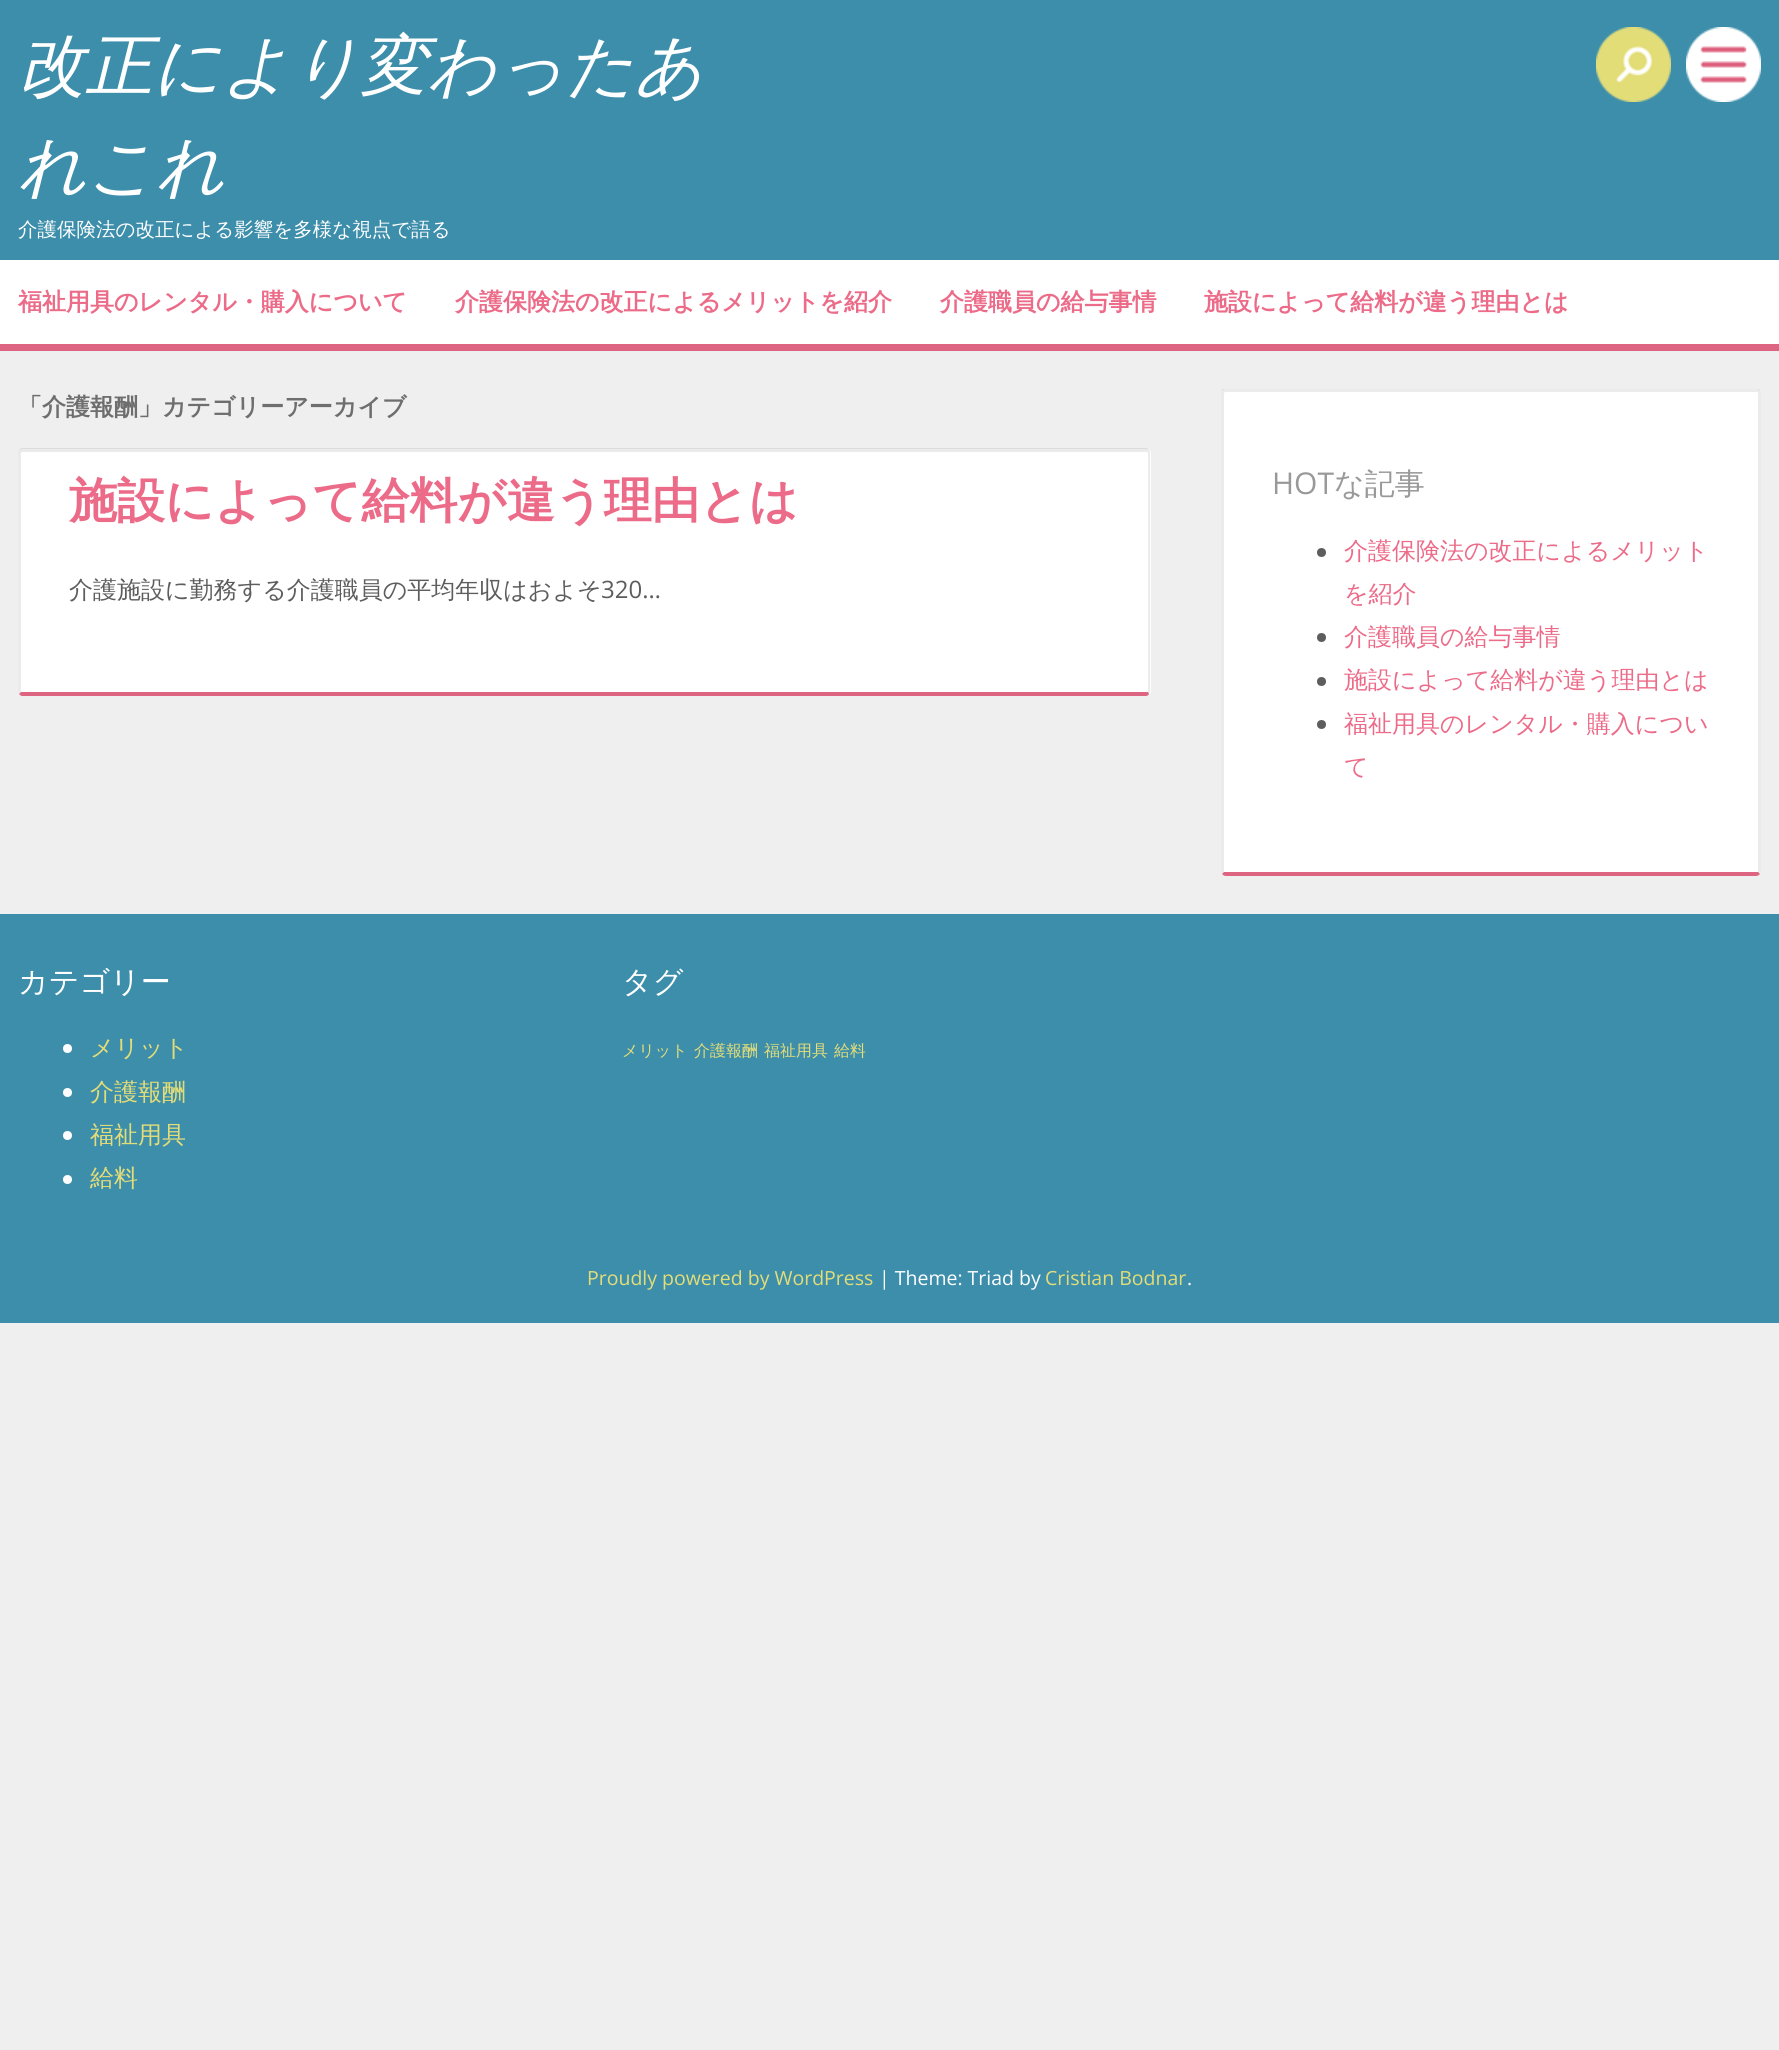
import math
import cairo


def round_path(ctx, x, y, w, h, r):
	ctx.new_sub_path()
	for i, (u, v) in enumerate([(x + w - r, y + h - r), (x + r, y + h - r), (x + r, y + r), (x + w - r, y + r)]):
		ctx.arc(u, v, r, i * math.pi / 2, (i + 1) * math.pi / 2)
	ctx.close_path()

def paste(ctx, path, x, y, w, h):
	ctx.save()
	ctx.set_source_surface(cairo.ImageSurface.create_from_png(path), x, y)
	ctx.rectangle(x, y, w, h)
	ctx.fill()
	ctx.restore()

def draw(ctx):
	ctx.set_source_rgb(0.937, 0.937, 0.937)
	ctx.paint()
	ctx.set_source_rgb(0.239, 0.557, 0.671)
	ctx.rectangle(0, 0, 1779, 260)
	ctx.fill()
	ctx.select_font_face('WenQuanYi Zen Hei Medium', cairo.FONT_SLANT_ITALIC)
	ctx.set_font_size(67.5)
	ctx.set_source_rgb(1, 1, 1)
	ctx.move_to(18, 89)
	ctx.show_text('改正により変わったあ')
	ctx.move_to(18, 190)
	ctx.show_text('れこれ')
	ctx.select_font_face('WenQuanYi Zen Hei Medium')
	ctx.set_font_size(19.5)
	ctx.move_to(18, 236)
	ctx.show_text('介護保険法の改正による影響を多様な視点で語る')
	paste(ctx, 'media/1.png', 1596, 27, 75, 75)
	paste(ctx, 'media/2.png', 1686, 27, 75, 75)
	ctx.rectangle(0, 260, 1779, 84)
	ctx.fill()
	ctx.set_source_rgb(0.871, 0.396, 0.506)
	ctx.rectangle(0, 344, 1779, 7)
	ctx.fill()
	ctx.select_font_face('WenQuanYi Zen Hei', cairo.FONT_SLANT_NORMAL, cairo.FONT_WEIGHT_BOLD)
	ctx.set_font_size(24)
	ctx.set_source_rgb(0.922, 0.42, 0.533)
	for x, y, s in [
		(18, 310, '福祉用具のレンタル・購入について'),
		(455, 310, '介護保険法の改正によるメリットを紹介'),
		(940, 310, '介護職員の給与事情'),
		(1204, 310, '施設によって給料が違う理由とは'),
	]:
		ctx.move_to(x, y)
		ctx.show_text(s)
	ctx.set_source_rgb(0.431, 0.431, 0.431)
	ctx.move_to(18, 415)
	ctx.show_text('「介護報酬」カテゴリーアーカイブ')
	ctx.set_source_rgb(1, 1, 1)
	round_path(ctx, 18, 449, 1133, 247, 5)
	ctx.fill()
	ctx.set_source_rgba(0.212, 0.212, 0.212, 0.1)
	ctx.new_path()
	ctx.move_to(22, 452)
	ctx.line_to(19, 450)
	ctx.line_to(21, 448)
	ctx.line_to(1147, 448)
	ctx.line_to(1149, 450)
	ctx.line_to(1147, 452)
	ctx.line_to(1146, 452)
	ctx.close_path()
	ctx.fill()
	ctx.new_path()
	ctx.move_to(1149, 450)
	ctx.line_to(1150, 453)
	ctx.line_to(1150, 692)
	ctx.line_to(1149, 694)
	ctx.line_to(1148, 692)
	ctx.line_to(1148, 453)
	ctx.line_to(1147, 452)
	ctx.close_path()
	ctx.fill()
	ctx.set_source_rgb(0.871, 0.396, 0.506)
	ctx.new_path()
	ctx.move_to(22, 696)
	ctx.line_to(1146, 696)
	ctx.curve_to(1147, 696, 1149, 695, 1149, 694)
	ctx.line_to(1148, 692)
	ctx.line_to(21, 692)
	ctx.line_to(19, 694)
	ctx.curve_to(20, 695, 21, 696, 22, 696)
	ctx.close_path()
	ctx.fill()
	ctx.set_source_rgba(0.212, 0.212, 0.212, 0.1)
	ctx.new_path()
	ctx.move_to(18, 453)
	ctx.line_to(18, 692)
	ctx.line_to(19, 694)
	ctx.line_to(21, 692)
	ctx.line_to(21, 453)
	ctx.line_to(22, 452)
	ctx.line_to(19, 450)
	ctx.close_path()
	ctx.fill()
	ctx.set_font_size(48)
	ctx.set_source_rgb(0.922, 0.42, 0.533)
	ctx.move_to(69, 517)
	ctx.show_text('施設によって給料が違う理由とは')
	ctx.select_font_face('WenQuanYi Zen Hei Medium')
	ctx.set_font_size(24)
	ctx.set_source_rgb(0.365, 0.365, 0.365)
	ctx.move_to(69, 598)
	ctx.show_text('介護施設に勤務する介護職員の平均年収はおよそ')
	ctx.select_font_face('Open Sans')
	ctx.move_to(601, 598)
	ctx.show_text('320…')
	ctx.set_source_rgb(1, 1, 1)
	round_path(ctx, 1221, 389, 540, 487, 5)
	ctx.fill()
	ctx.save()
	ctx.rectangle(0, 389, 1779, 487)
	ctx.clip()
	ctx.set_source_rgba(0.212, 0.212, 0.212, 0.1)
	ctx.new_path()
	ctx.move_to(1226, 392)
	ctx.line_to(1225, 392)
	ctx.line_to(1222, 390)
	ctx.curve_to(1242, 367, 1283, 388, 1313, 388)
	ctx.line_to(1758, 388)
	ctx.line_to(1760, 390)
	ctx.line_to(1757, 392)
	ctx.line_to(1756, 392)
	ctx.close_path()
	ctx.fill()
	ctx.restore()
	ctx.set_source_rgba(0.212, 0.212, 0.212, 0.1)
	ctx.new_path()
	ctx.move_to(1761, 872)
	ctx.line_to(1761, 393)
	ctx.line_to(1760, 390)
	ctx.line_to(1757, 392)
	ctx.line_to(1758, 393)
	ctx.line_to(1758, 872)
	ctx.line_to(1760, 874)
	ctx.close_path()
	ctx.fill()
	ctx.set_source_rgb(0.871, 0.396, 0.506)
	ctx.new_path()
	ctx.move_to(1226, 876)
	ctx.line_to(1756, 876)
	ctx.curve_to(1758, 876, 1759, 875, 1760, 874)
	ctx.line_to(1758, 872)
	ctx.line_to(1224, 872)
	ctx.line_to(1222, 874)
	ctx.curve_to(1223, 875, 1224, 876, 1226, 876)
	ctx.close_path()
	ctx.fill()
	ctx.set_source_rgba(0.212, 0.212, 0.212, 0.1)
	ctx.new_path()
	ctx.move_to(1221, 393)
	ctx.line_to(1221, 872)
	ctx.line_to(1222, 874)
	ctx.line_to(1224, 872)
	ctx.line_to(1224, 393)
	ctx.line_to(1225, 392)
	ctx.line_to(1222, 390)
	ctx.close_path()
	ctx.fill()
	ctx.set_font_size(30)
	ctx.set_source_rgb(0.6, 0.6, 0.6)
	ctx.move_to(1272, 494)
	ctx.show_text('HOT')
	ctx.select_font_face('WenQuanYi Zen Hei Medium')
	ctx.move_to(1334, 494)
	ctx.show_text('な記事')
	ctx.set_source_rgb(0.365, 0.365, 0.365)
	ctx.new_path()
	ctx.arc(1321.5, 552.5, 4.5, 0, 2 * math.pi)
	ctx.fill()
	ctx.set_font_size(24)
	ctx.set_source_rgb(0.922, 0.42, 0.533)
	ctx.move_to(1344, 559)
	ctx.show_text('介護保険法の改正によるメリット')
	ctx.move_to(1344, 602)
	ctx.show_text('を紹介')
	ctx.set_source_rgb(0.365, 0.365, 0.365)
	ctx.new_path()
	ctx.arc(1321.5, 637.5, 4.5, 0, 2 * math.pi)
	ctx.fill()
	ctx.set_source_rgb(0.922, 0.42, 0.533)
	ctx.move_to(1344, 645)
	ctx.show_text('介護職員の給与事情')
	ctx.set_source_rgb(0.365, 0.365, 0.365)
	ctx.new_path()
	ctx.arc(1321.5, 681.5, 4.5, 0, 2 * math.pi)
	ctx.fill()
	ctx.set_source_rgb(0.922, 0.42, 0.533)
	ctx.move_to(1344, 688)
	ctx.show_text('施設によって給料が違う理由とは')
	ctx.set_source_rgb(0.365, 0.365, 0.365)
	ctx.new_path()
	ctx.arc(1321.5, 724.5, 4.5, 0, 2 * math.pi)
	ctx.fill()
	ctx.set_source_rgb(0.922, 0.42, 0.533)
	ctx.move_to(1344, 732)
	ctx.show_text('福祉用具のレンタル・購入につい')
	ctx.move_to(1344, 775)
	ctx.show_text('て')
	ctx.set_source_rgb(0.239, 0.557, 0.671)
	ctx.rectangle(0, 914, 1779, 409)
	ctx.fill()
	ctx.set_font_size(30)
	ctx.set_source_rgb(1, 1, 1)
	ctx.move_to(18, 992)
	ctx.show_text('カテゴリー')
	ctx.new_path()
	ctx.arc(67.5, 1048.5, 4.5, 0, 2 * math.pi)
	ctx.fill()
	ctx.set_font_size(24)
	ctx.set_source_rgb(0.89, 0.867, 0.471)
	ctx.move_to(90, 1056)
	ctx.show_text('メリット')
	ctx.set_source_rgb(1, 1, 1)
	ctx.new_path()
	ctx.arc(67.5, 1092.5, 4.5, 0, 2 * math.pi)
	ctx.fill()
	ctx.set_source_rgb(0.89, 0.867, 0.471)
	ctx.move_to(90, 1100)
	ctx.show_text('介護報酬')
	ctx.set_source_rgb(1, 1, 1)
	ctx.new_path()
	ctx.arc(67.5, 1135.5, 4.5, 0, 2 * math.pi)
	ctx.fill()
	ctx.set_source_rgb(0.89, 0.867, 0.471)
	ctx.move_to(90, 1143)
	ctx.show_text('福祉用具')
	ctx.set_source_rgb(1, 1, 1)
	ctx.new_path()
	ctx.arc(67.5, 1179.5, 4.5, 0, 2 * math.pi)
	ctx.fill()
	ctx.set_source_rgb(0.89, 0.867, 0.471)
	ctx.move_to(90, 1186)
	ctx.show_text('給料')
	ctx.set_font_size(30)
	ctx.set_source_rgb(1, 1, 1)
	ctx.move_to(622, 992)
	ctx.show_text('タグ')
	ctx.set_font_size(16)
	ctx.set_source_rgb(0.89, 0.867, 0.471)
	for x, y, s in [
		(622, 1056, 'メリット'),
		(694, 1056, '介護報酬'),
		(764, 1056, '福祉用具'),
		(834, 1056, '給料'),
	]:
		ctx.move_to(x, y)
		ctx.show_text(s)
	ctx.select_font_face('Open Sans')
	ctx.set_font_size(19.5)
	ctx.move_to(587, 1285)
	ctx.show_text('Proudly powered by WordPress')
	ctx.set_source_rgb(1, 1, 1)
	ctx.move_to(879, 1285)
	ctx.show_text('| Theme: Triad by')
	ctx.set_source_rgb(0.89, 0.867, 0.471)
	ctx.move_to(1045, 1285)
	ctx.show_text('Cristian Bodnar')
	ctx.set_source_rgb(1, 1, 1)
	ctx.move_to(1187, 1285)
	ctx.show_text('.')


surface = cairo.ImageSurface(cairo.FORMAT_RGB24, 1779, 2050)
ctx = cairo.Context(surface)
options = cairo.FontOptions()
options.set_hint_metrics(cairo.HINT_METRICS_OFF)
options.set_hint_style(cairo.HINT_STYLE_NONE)
ctx.set_font_options(options)
ctx.set_miter_limit(4)
draw(ctx)
surface.write_to_png('image.png')
